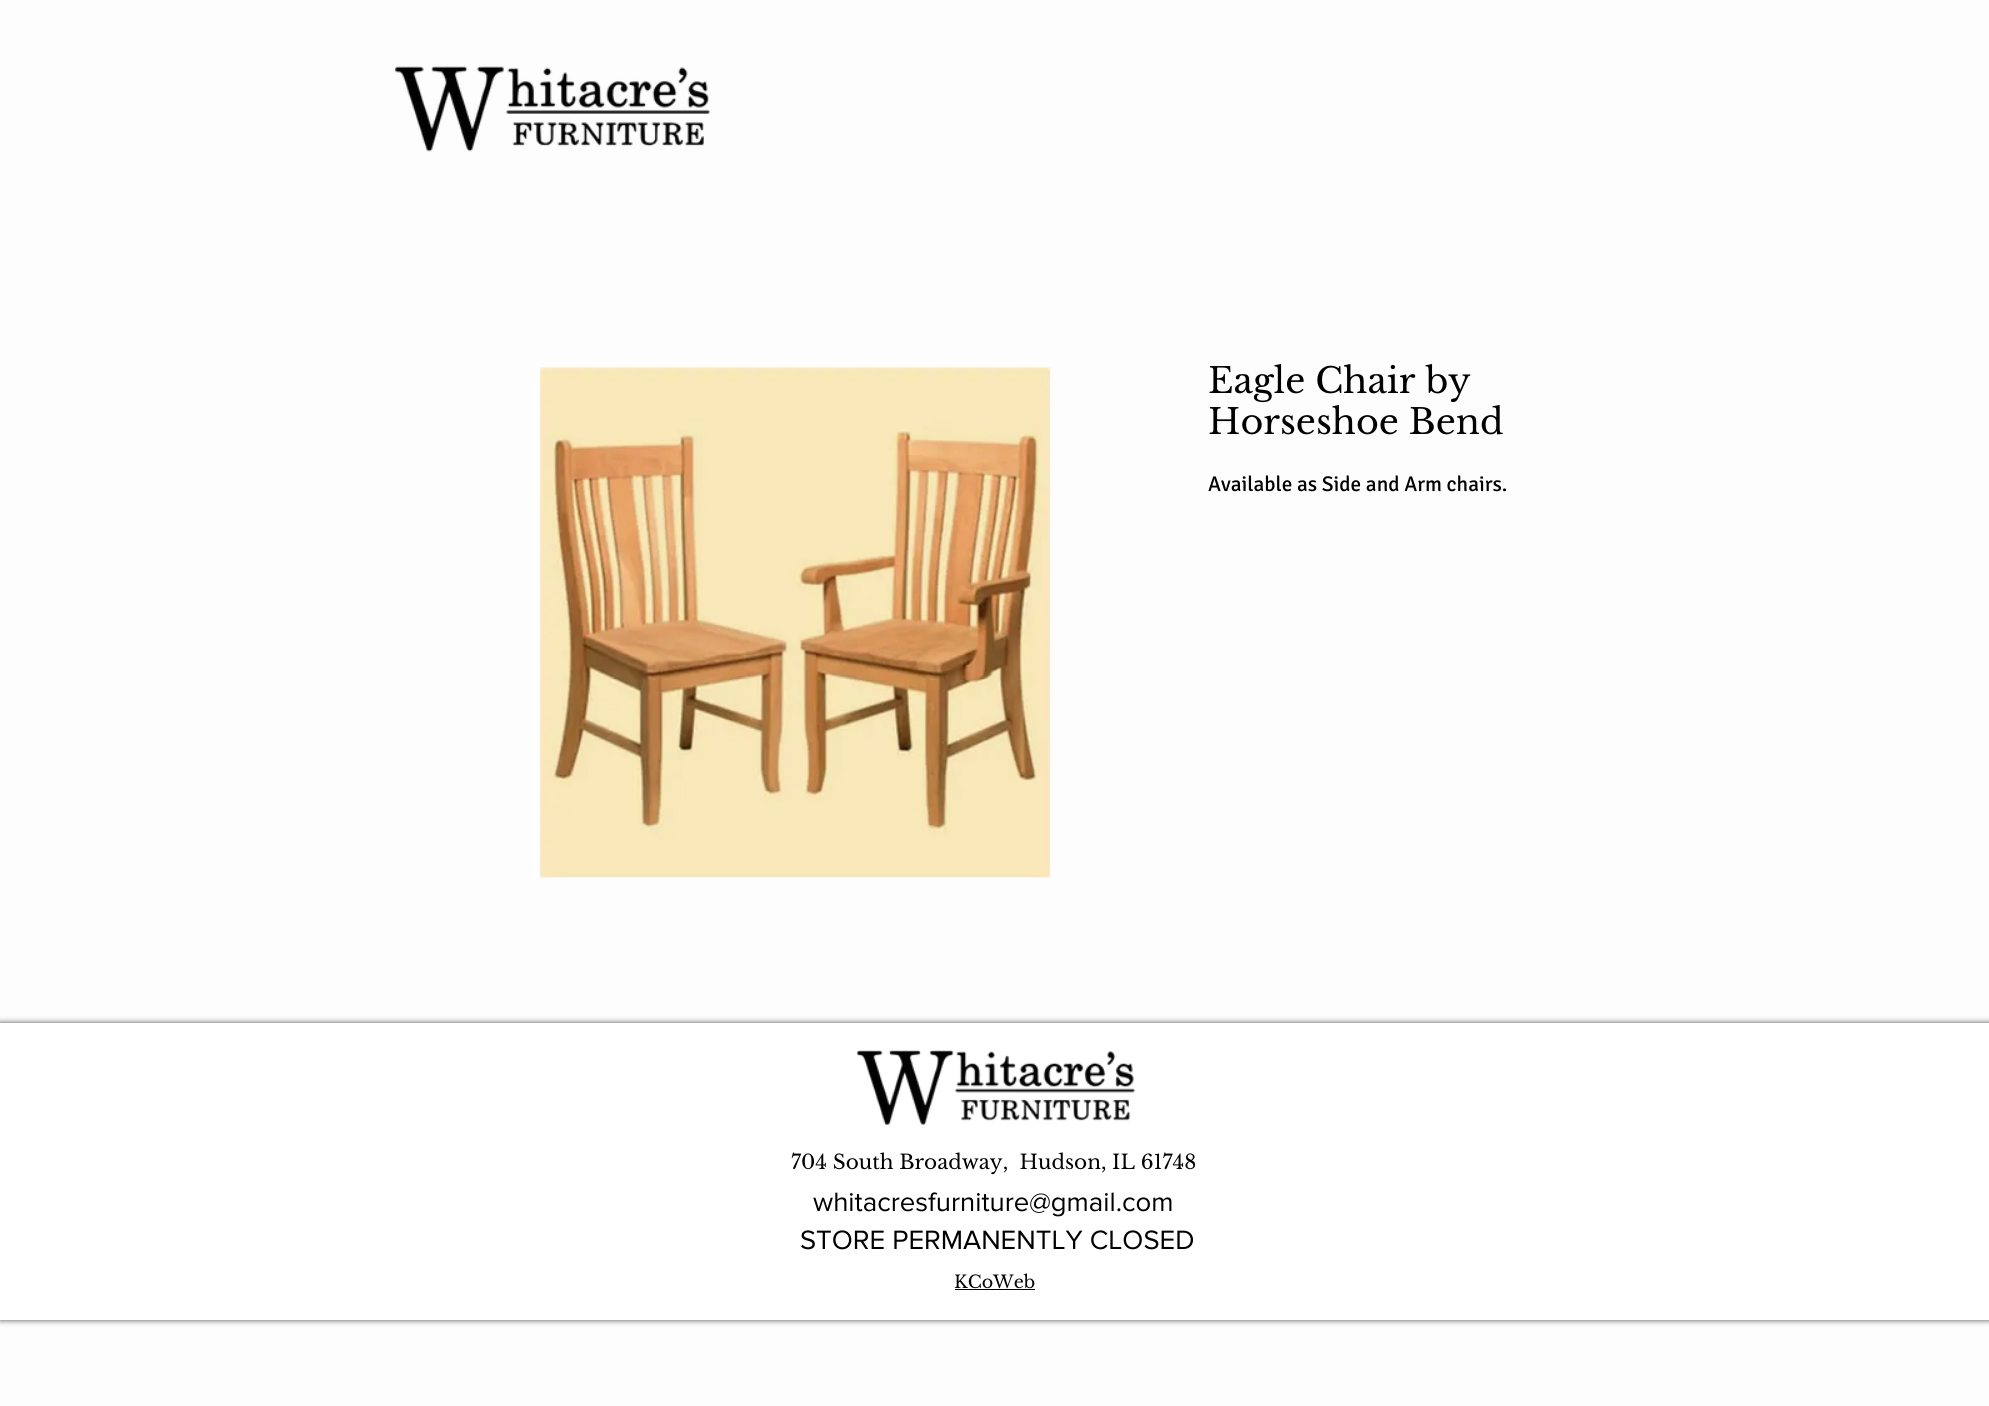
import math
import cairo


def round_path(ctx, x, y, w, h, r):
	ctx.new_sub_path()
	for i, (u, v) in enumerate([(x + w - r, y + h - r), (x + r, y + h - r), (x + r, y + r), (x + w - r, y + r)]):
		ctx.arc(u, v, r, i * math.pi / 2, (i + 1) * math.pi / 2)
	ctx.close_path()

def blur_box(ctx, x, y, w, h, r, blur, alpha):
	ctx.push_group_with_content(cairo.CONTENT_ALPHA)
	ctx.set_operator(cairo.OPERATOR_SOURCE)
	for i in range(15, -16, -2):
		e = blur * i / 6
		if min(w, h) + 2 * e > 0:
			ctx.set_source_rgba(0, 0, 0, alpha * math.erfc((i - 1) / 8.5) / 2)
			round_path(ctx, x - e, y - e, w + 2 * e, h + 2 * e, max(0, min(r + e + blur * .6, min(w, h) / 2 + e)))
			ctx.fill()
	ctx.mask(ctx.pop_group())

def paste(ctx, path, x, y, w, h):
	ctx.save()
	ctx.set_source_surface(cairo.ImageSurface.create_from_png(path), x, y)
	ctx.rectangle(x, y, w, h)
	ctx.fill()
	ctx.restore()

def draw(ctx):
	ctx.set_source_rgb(0.996, 0.992, 0.992)
	ctx.paint()
	paste(ctx, 'media/1.png', 395, 66, 315, 86)
	paste(ctx, 'media/2.png', 532, 360, 520, 519)
	ctx.select_font_face('Libre Baskerville')
	ctx.set_font_size(35)
	ctx.set_source_rgb(0, 0, 0)
	ctx.move_to(1208, 393)
	ctx.show_text('Eagle Chair by')
	ctx.move_to(1208, 434)
	ctx.show_text('Horseshoe Bend')
	ctx.select_font_face('Signika')
	ctx.set_font_size(21.25)
	ctx.move_to(1208, 491)
	ctx.show_text('Available as Side and Arm chairs.')
	ctx.set_source_rgb(0, 0, 0)
	blur_box(ctx, 0, 1023, 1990, 297, 0, 3, 0.7)
	ctx.set_source_rgb(1, 1, 1)
	ctx.rectangle(0, 1023, 1989, 297)
	ctx.fill()
	paste(ctx, 'media/3.png', 856, 1050, 280, 75)
	ctx.select_font_face('Libre Baskerville')
	ctx.set_font_size(20)
	ctx.set_source_rgb(0, 0, 0)
	ctx.move_to(791, 1169)
	ctx.show_text('704 South Broadway,  Hudson, IL 61748')
	ctx.select_font_face('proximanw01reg')
	ctx.set_font_size(27.5)
	ctx.move_to(813, 1211)
	ctx.show_text('whitacresfurniture@gmail.com')
	ctx.move_to(800, 1249)
	ctx.show_text('STORE PERMANENTLY CLOSED')
	ctx.select_font_face('Libre Baskerville')
	ctx.set_font_size(17.5)
	ctx.move_to(954, 1288)
	ctx.show_text('KCoWeb')
	ctx.rectangle(955, 1289, 80, 1)
	ctx.fill()


surface = cairo.ImageSurface(cairo.FORMAT_RGB24, 1989, 1406)
ctx = cairo.Context(surface)
options = cairo.FontOptions()
options.set_hint_metrics(cairo.HINT_METRICS_OFF)
options.set_hint_style(cairo.HINT_STYLE_NONE)
ctx.set_font_options(options)
ctx.set_miter_limit(4)
draw(ctx)
surface.write_to_png('image.png')
